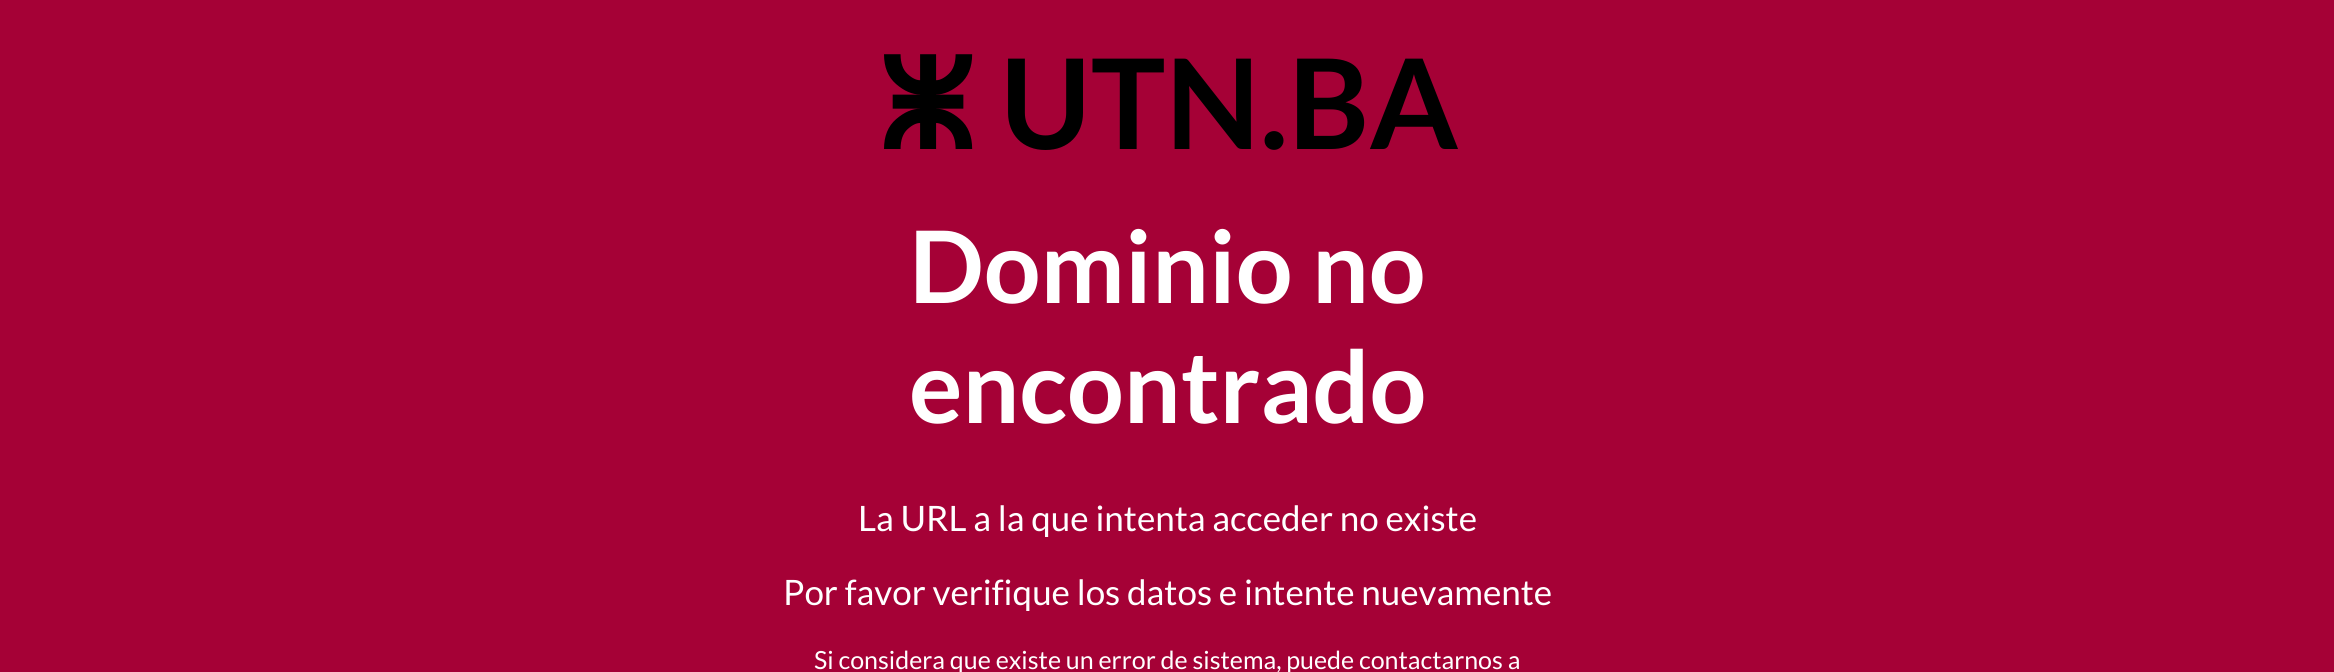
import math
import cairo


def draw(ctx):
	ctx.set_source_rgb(0.647, 0.004, 0.212)
	ctx.paint()
	ctx.select_font_face('DejaVu Sans', cairo.FONT_SLANT_NORMAL, cairo.FONT_WEIGHT_BOLD)
	ctx.set_font_size(125)
	ctx.set_source_rgb(0, 0, 0)
	ctx.move_to(877, 149)
	ctx.show_text('ⵥ')
	ctx.select_font_face('Lato', cairo.FONT_SLANT_NORMAL, cairo.FONT_WEIGHT_BOLD)
	ctx.move_to(1000, 149)
	ctx.show_text('UTN.BA')
	ctx.set_font_size(100)
	ctx.set_source_rgb(1, 1, 1)
	ctx.move_to(909, 303)
	ctx.show_text('Dominio no')
	ctx.move_to(909, 423)
	ctx.show_text('encontrado')
	ctx.select_font_face('Lato')
	ctx.set_font_size(35)
	ctx.move_to(858, 531)
	ctx.show_text('La URL a la que intenta acceder no existe')
	ctx.move_to(783, 605)
	ctx.show_text('Por favor verifique los datos e intente nuevamente')
	ctx.set_font_size(25)
	ctx.move_to(814, 669)
	ctx.show_text('Si considera que existe un error de sistema, puede contactarnos a')


surface = cairo.ImageSurface(cairo.FORMAT_RGB24, 2334, 672)
ctx = cairo.Context(surface)
options = cairo.FontOptions()
options.set_hint_metrics(cairo.HINT_METRICS_OFF)
options.set_hint_style(cairo.HINT_STYLE_NONE)
ctx.set_font_options(options)
ctx.set_miter_limit(4)
draw(ctx)
surface.write_to_png('image.png')
